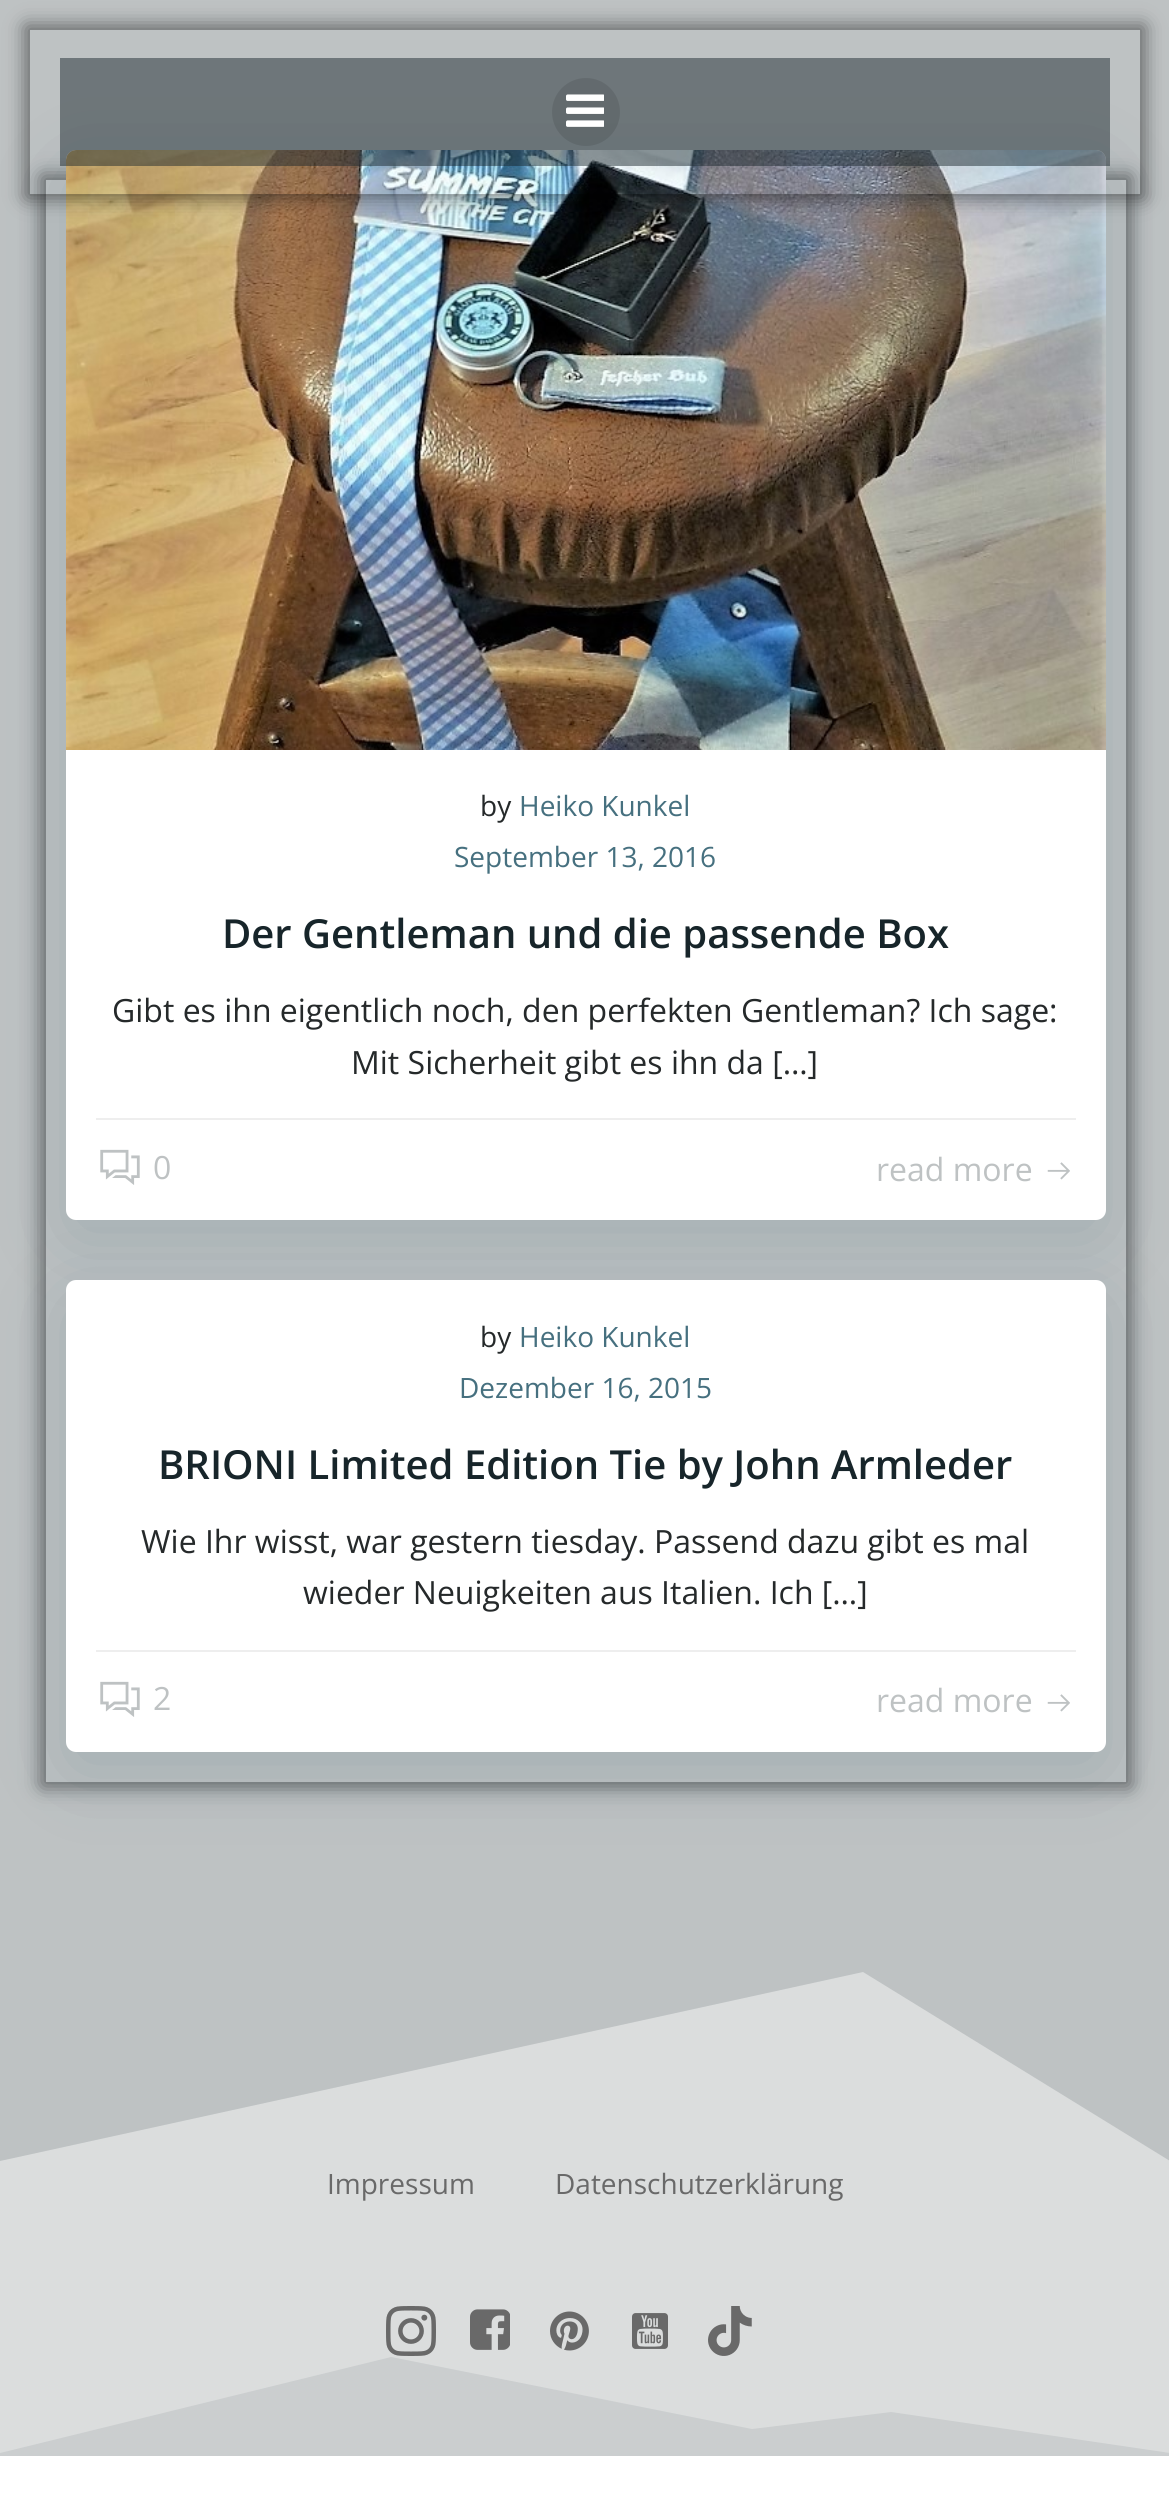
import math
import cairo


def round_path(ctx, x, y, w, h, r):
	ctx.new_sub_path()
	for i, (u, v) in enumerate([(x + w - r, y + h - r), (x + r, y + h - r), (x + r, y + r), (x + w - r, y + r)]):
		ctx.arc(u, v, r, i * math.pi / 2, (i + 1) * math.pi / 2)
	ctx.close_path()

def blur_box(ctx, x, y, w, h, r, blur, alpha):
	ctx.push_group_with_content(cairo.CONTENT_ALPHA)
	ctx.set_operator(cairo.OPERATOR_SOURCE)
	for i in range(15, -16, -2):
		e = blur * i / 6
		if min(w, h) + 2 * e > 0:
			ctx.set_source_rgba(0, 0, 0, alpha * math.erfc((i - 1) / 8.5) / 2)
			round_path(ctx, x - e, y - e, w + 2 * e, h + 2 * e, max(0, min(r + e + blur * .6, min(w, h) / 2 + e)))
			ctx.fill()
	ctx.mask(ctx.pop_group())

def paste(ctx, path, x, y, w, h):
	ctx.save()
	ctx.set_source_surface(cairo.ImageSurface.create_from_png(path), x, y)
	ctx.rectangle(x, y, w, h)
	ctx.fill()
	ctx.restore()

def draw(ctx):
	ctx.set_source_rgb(1, 1, 1)
	ctx.paint()
	ctx.set_source_rgb(0.745, 0.761, 0.765)
	ctx.rectangle(0, 0, 1169, 1962)
	ctx.fill()
	ctx.save()
	ctx.set_fill_rule(cairo.FILL_RULE_EVEN_ODD)
	ctx.new_path()
	ctx.move_to(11, 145)
	ctx.line_to(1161, 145)
	ctx.line_to(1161, 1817)
	ctx.line_to(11, 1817)
	ctx.close_path()
	ctx.move_to(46, 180)
	ctx.line_to(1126, 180)
	ctx.line_to(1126, 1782)
	ctx.line_to(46, 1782)
	ctx.close_path()
	ctx.clip()
	ctx.set_source_rgb(0, 0, 0)
	blur_box(ctx, 42, 176, 1088, 1610, 0, 10, 0.5)
	ctx.restore()
	ctx.set_source_rgb(0.004, 0.2, 0.29)
	blur_box(ctx, 66, 170, 1040, 1070, 10, 40, 0.15)
	ctx.set_source_rgb(1, 1, 1)
	round_path(ctx, 66, 150, 1040, 1070, 10)
	ctx.fill()
	paste(ctx, 'media/2.png', 66, 150, 1040, 600)
	ctx.save()
	ctx.set_fill_rule(cairo.FILL_RULE_EVEN_ODD)
	ctx.new_path()
	ctx.move_to(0, 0)
	ctx.line_to(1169, 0)
	ctx.line_to(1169, 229)
	ctx.line_to(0, 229)
	ctx.close_path()
	ctx.move_to(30, 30)
	ctx.line_to(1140, 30)
	ctx.line_to(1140, 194)
	ctx.line_to(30, 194)
	ctx.close_path()
	ctx.clip()
	ctx.set_source_rgb(0, 0, 0)
	blur_box(ctx, 26, 26, 1118, 172, 0, 10, 0.5)
	ctx.restore()
	ctx.set_source_rgba(0.09, 0.145, 0.165, 0.48)
	ctx.rectangle(60, 58, 1050, 108)
	ctx.fill()
	ctx.set_source_rgba(0, 0, 0, 0.1)
	ctx.arc(586, 112, 34, 0, 2 * math.pi)
	ctx.fill()
	paste(ctx, 'media/1.png', 566, 94, 38, 33)
	ctx.set_source_rgb(0.933, 0.933, 0.933)
	ctx.rectangle(96, 1118, 980, 2)
	ctx.fill()
	ctx.select_font_face('Open Sans')
	ctx.set_font_size(28)
	ctx.set_source_rgb(0.145, 0.161, 0.165)
	ctx.move_to(480, 816)
	ctx.show_text('by')
	ctx.set_source_rgb(0.275, 0.439, 0.498)
	ctx.move_to(519, 816)
	ctx.show_text('Heiko Kunkel')
	ctx.move_to(454, 867)
	ctx.show_text('September 13, 2016')
	ctx.select_font_face('Open Sans SemiBold')
	ctx.set_font_size(40)
	ctx.set_source_rgb(0.09, 0.145, 0.165)
	ctx.move_to(222, 948)
	ctx.show_text('Der Gentleman und die passende Box')
	ctx.select_font_face('Open Sans')
	ctx.set_font_size(32)
	ctx.set_source_rgb(0.145, 0.161, 0.165)
	ctx.move_to(112, 1022)
	ctx.show_text('Gibt es ihn eigentlich noch, den perfekten Gentleman? Ich sage:')
	ctx.move_to(351, 1074)
	ctx.show_text('Mit Sicherheit gibt es ihn da […]')
	paste(ctx, 'media/3.png', 100, 1149, 40, 36)
	ctx.set_source_rgb(0.745, 0.761, 0.765)
	ctx.move_to(153, 1179)
	ctx.show_text('0')
	ctx.move_to(876, 1181)
	ctx.show_text('read more')
	paste(ctx, 'media/4.png', 1047, 1162, 23, 18)
	ctx.set_source_rgb(0.004, 0.2, 0.29)
	blur_box(ctx, 66, 1300, 1040, 472, 10, 40, 0.15)
	ctx.set_source_rgb(1, 1, 1)
	round_path(ctx, 66, 1280, 1040, 472, 10)
	ctx.fill()
	ctx.set_source_rgb(0.933, 0.933, 0.933)
	ctx.rectangle(96, 1650, 980, 2)
	ctx.fill()
	ctx.set_font_size(28)
	ctx.set_source_rgb(0.145, 0.161, 0.165)
	ctx.move_to(480, 1347)
	ctx.show_text('by')
	ctx.set_source_rgb(0.275, 0.439, 0.498)
	ctx.move_to(519, 1347)
	ctx.show_text('Heiko Kunkel')
	ctx.move_to(459, 1398)
	ctx.show_text('Dezember 16, 2015')
	ctx.select_font_face('Open Sans SemiBold')
	ctx.set_font_size(40)
	ctx.set_source_rgb(0.09, 0.145, 0.165)
	ctx.move_to(158, 1479)
	ctx.show_text('BRIONI Limited Edition Tie by John Armleder')
	ctx.select_font_face('Open Sans')
	ctx.set_font_size(32)
	ctx.set_source_rgb(0.145, 0.161, 0.165)
	ctx.move_to(141, 1553)
	ctx.show_text('Wie Ihr wisst, war gestern tiesday. Passend dazu gibt es mal')
	ctx.move_to(303, 1604)
	ctx.show_text('wieder Neuigkeiten aus Italien. Ich […]')
	paste(ctx, 'media/3.png', 100, 1681, 40, 36)
	ctx.set_source_rgb(0.745, 0.761, 0.765)
	ctx.move_to(153, 1710)
	ctx.show_text('2')
	ctx.move_to(876, 1712)
	ctx.show_text('read more')
	paste(ctx, 'media/4.png', 1047, 1694, 23, 18)
	ctx.set_source_rgb(0.859, 0.867, 0.867)
	ctx.rectangle(0, 1972, 1169, 481)
	ctx.fill()
	ctx.save()
	ctx.rectangle(0, 1962, 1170, 200)
	ctx.clip()
	ctx.set_source_rgb(0.745, 0.761, 0.765)
	ctx.new_path()
	ctx.move_to(863, 1972)
	ctx.line_to(0, 2161)
	ctx.line_to(0, 1961)
	ctx.line_to(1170, 1961)
	ctx.line_to(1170, 2161)
	ctx.close_path()
	ctx.fill()
	ctx.restore()
	ctx.set_font_size(28)
	ctx.set_source_rgb(0.412, 0.412, 0.412)
	ctx.move_to(327, 2194)
	ctx.show_text('Impressum')
	ctx.move_to(555, 2194)
	ctx.show_text('Datenschutzerklärung')
	paste(ctx, 'media/5.png', 386, 2306, 50, 50)
	paste(ctx, 'media/6.png', 470, 2309, 40, 41)
	paste(ctx, 'media/7.png', 550, 2311, 39, 40)
	paste(ctx, 'media/8.png', 632, 2313, 36, 36)
	paste(ctx, 'media/9.png', 708, 2306, 44, 50)
	ctx.save()
	ctx.rectangle(0, 2354, 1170, 102)
	ctx.clip()
	ctx.set_source_rgb(0.796, 0.808, 0.812)
	ctx.new_path()
	ctx.move_to(891, 2412)
	ctx.line_to(752, 2429)
	ctx.line_to(391, 2357)
	ctx.line_to(0, 2453)
	ctx.line_to(0, 2457)
	ctx.line_to(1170, 2457)
	ctx.line_to(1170, 2453)
	ctx.fill()
	ctx.restore()


surface = cairo.ImageSurface(cairo.FORMAT_RGB24, 1169, 2509)
ctx = cairo.Context(surface)
options = cairo.FontOptions()
options.set_hint_metrics(cairo.HINT_METRICS_OFF)
options.set_hint_style(cairo.HINT_STYLE_NONE)
ctx.set_font_options(options)
ctx.set_miter_limit(4)
draw(ctx)
surface.write_to_png('image.png')
